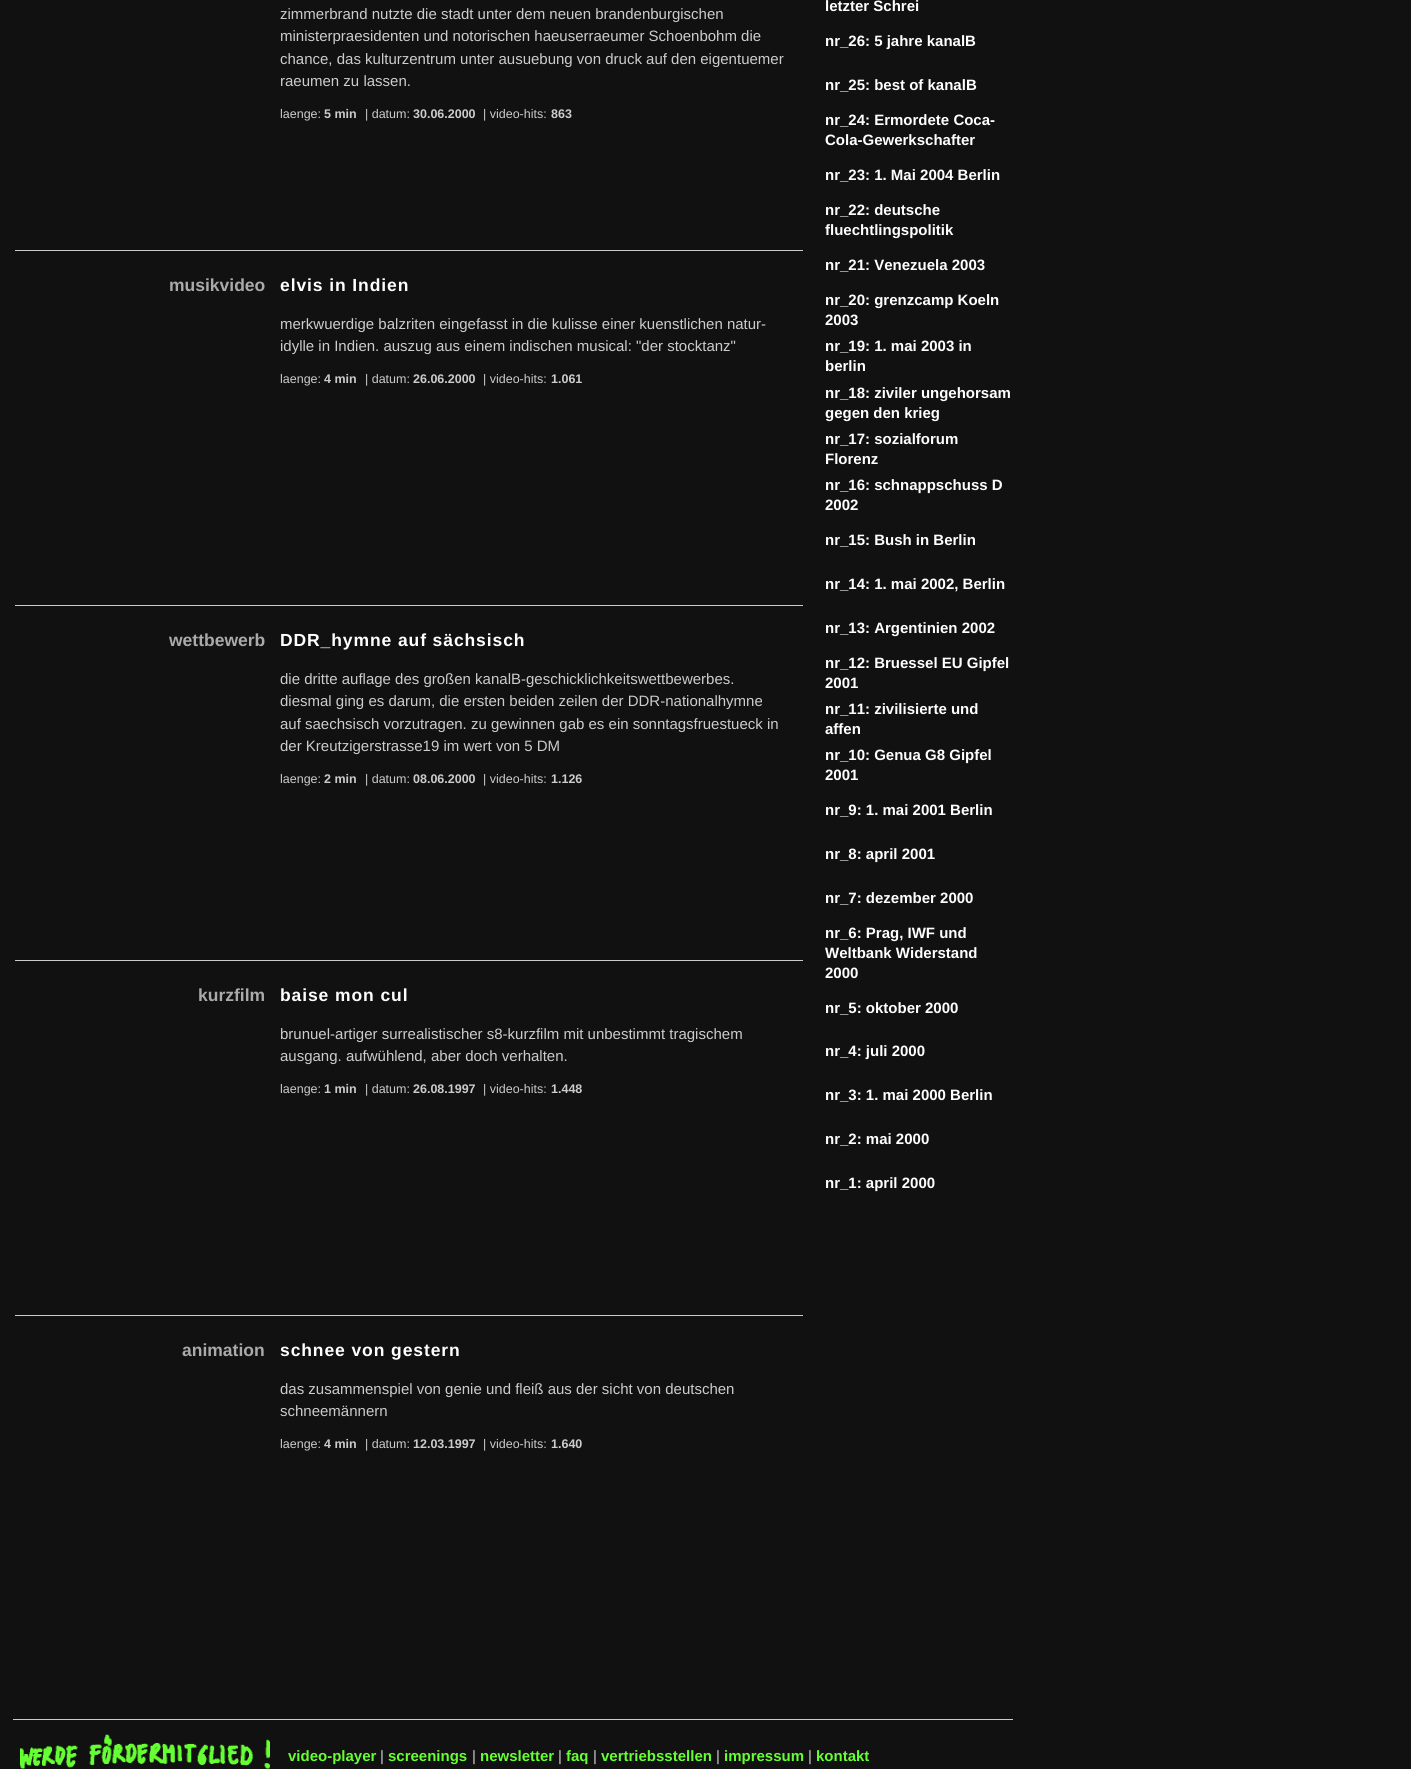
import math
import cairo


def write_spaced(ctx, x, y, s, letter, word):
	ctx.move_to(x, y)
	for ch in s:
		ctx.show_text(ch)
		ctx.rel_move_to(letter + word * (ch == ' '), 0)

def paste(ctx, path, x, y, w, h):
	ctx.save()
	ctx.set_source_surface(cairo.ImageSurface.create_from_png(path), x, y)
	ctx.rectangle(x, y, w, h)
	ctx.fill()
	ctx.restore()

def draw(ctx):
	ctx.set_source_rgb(0.067, 0.067, 0.067)
	ctx.paint()
	ctx.select_font_face('Liberation Sans')
	ctx.set_font_size(15)
	ctx.set_source_rgb(0.8, 0.8, 0.8)
	for x, y, s in [
		(280, 19, 'zimmerbrand nutzte die stadt unter dem neuen brandenburgischen'),
		(280, 41, 'ministerpraesidenten und notorischen haeuserraeumer Schoenbohm die'),
		(280, 64, 'chance, das kulturzentrum unter ausuebung von druck auf den eigentuemer'),
		(280, 86, 'raeumen zu lassen.'),
	]:
		ctx.move_to(x, y)
		ctx.show_text(s)
	ctx.set_font_size(12.5)
	ctx.move_to(280, 118)
	ctx.show_text('laenge:')
	ctx.select_font_face('Liberation Sans', cairo.FONT_SLANT_NORMAL, cairo.FONT_WEIGHT_BOLD)
	ctx.move_to(324, 118)
	ctx.show_text('5 min')
	ctx.select_font_face('Liberation Sans')
	ctx.move_to(365, 118)
	ctx.show_text('| datum:')
	ctx.select_font_face('Liberation Sans', cairo.FONT_SLANT_NORMAL, cairo.FONT_WEIGHT_BOLD)
	ctx.move_to(413, 118)
	ctx.show_text('30.06.2000')
	ctx.select_font_face('Liberation Sans')
	ctx.move_to(483, 118)
	ctx.show_text('| video-hits:')
	ctx.select_font_face('Liberation Sans', cairo.FONT_SLANT_NORMAL, cairo.FONT_WEIGHT_BOLD)
	ctx.move_to(551, 118)
	ctx.show_text('863')
	ctx.rectangle(15, 250, 788, 1)
	ctx.fill()
	ctx.set_font_size(17.5)
	ctx.set_source_rgb(0.667, 0.667, 0.667)
	ctx.move_to(169, 291)
	ctx.show_text('musikvideo')
	ctx.set_source_rgb(1, 1, 1)
	write_spaced(ctx, 280, 291, 'elvis in Indien', 0.9, 0)
	ctx.select_font_face('Liberation Sans')
	ctx.set_font_size(15)
	ctx.set_source_rgb(0.8, 0.8, 0.8)
	ctx.move_to(280, 329)
	ctx.show_text('merkwuerdige balzriten eingefasst in die kulisse einer kuenstlichen natur-')
	ctx.move_to(280, 351)
	ctx.show_text('idylle in Indien. auszug aus einem indischen musical: "der stocktanz"')
	ctx.set_font_size(12.5)
	ctx.move_to(280, 383)
	ctx.show_text('laenge:')
	ctx.select_font_face('Liberation Sans', cairo.FONT_SLANT_NORMAL, cairo.FONT_WEIGHT_BOLD)
	ctx.move_to(324, 383)
	ctx.show_text('4 min')
	ctx.select_font_face('Liberation Sans')
	ctx.move_to(365, 383)
	ctx.show_text('| datum:')
	ctx.select_font_face('Liberation Sans', cairo.FONT_SLANT_NORMAL, cairo.FONT_WEIGHT_BOLD)
	ctx.move_to(413, 383)
	ctx.show_text('26.06.2000')
	ctx.select_font_face('Liberation Sans')
	ctx.move_to(483, 383)
	ctx.show_text('| video-hits:')
	ctx.select_font_face('Liberation Sans', cairo.FONT_SLANT_NORMAL, cairo.FONT_WEIGHT_BOLD)
	ctx.move_to(551, 383)
	ctx.show_text('1.061')
	ctx.rectangle(15, 605, 788, 1)
	ctx.fill()
	ctx.set_font_size(17.5)
	ctx.set_source_rgb(0.667, 0.667, 0.667)
	ctx.move_to(169, 646)
	ctx.show_text('wettbewerb')
	ctx.set_source_rgb(1, 1, 1)
	write_spaced(ctx, 280, 646, 'DDR_hymne auf sächsisch', 0.9, 0)
	ctx.select_font_face('Liberation Sans')
	ctx.set_font_size(15)
	ctx.set_source_rgb(0.8, 0.8, 0.8)
	for x, y, s in [
		(280, 684, 'die dritte auflage des großen kanalB-geschicklichkeitswettbewerbes.'),
		(280, 706, 'diesmal ging es darum, die ersten beiden zeilen der DDR-nationalhymne'),
		(280, 729, 'auf saechsisch vorzutragen. zu gewinnen gab es ein sonntagsfruestueck in'),
		(280, 751, 'der Kreutzigerstrasse19 im wert von 5 DM'),
	]:
		ctx.move_to(x, y)
		ctx.show_text(s)
	ctx.set_font_size(12.5)
	ctx.move_to(280, 783)
	ctx.show_text('laenge:')
	ctx.select_font_face('Liberation Sans', cairo.FONT_SLANT_NORMAL, cairo.FONT_WEIGHT_BOLD)
	ctx.move_to(324, 783)
	ctx.show_text('2 min')
	ctx.select_font_face('Liberation Sans')
	ctx.move_to(365, 783)
	ctx.show_text('| datum:')
	ctx.select_font_face('Liberation Sans', cairo.FONT_SLANT_NORMAL, cairo.FONT_WEIGHT_BOLD)
	ctx.move_to(413, 783)
	ctx.show_text('08.06.2000')
	ctx.select_font_face('Liberation Sans')
	ctx.move_to(483, 783)
	ctx.show_text('| video-hits:')
	ctx.select_font_face('Liberation Sans', cairo.FONT_SLANT_NORMAL, cairo.FONT_WEIGHT_BOLD)
	ctx.move_to(551, 783)
	ctx.show_text('1.126')
	ctx.rectangle(15, 960, 788, 1)
	ctx.fill()
	ctx.set_font_size(17.5)
	ctx.set_source_rgb(0.667, 0.667, 0.667)
	ctx.move_to(198, 1001)
	ctx.show_text('kurzfilm')
	ctx.set_source_rgb(1, 1, 1)
	write_spaced(ctx, 280, 1001, 'baise mon cul', 0.9, 0)
	ctx.select_font_face('Liberation Sans')
	ctx.set_font_size(15)
	ctx.set_source_rgb(0.8, 0.8, 0.8)
	ctx.move_to(280, 1039)
	ctx.show_text('brunuel-artiger surrealistischer s8-kurzfilm mit unbestimmt tragischem')
	ctx.move_to(280, 1061)
	ctx.show_text('ausgang. aufwühlend, aber doch verhalten.')
	ctx.set_font_size(12.5)
	ctx.move_to(280, 1093)
	ctx.show_text('laenge:')
	ctx.select_font_face('Liberation Sans', cairo.FONT_SLANT_NORMAL, cairo.FONT_WEIGHT_BOLD)
	ctx.move_to(324, 1093)
	ctx.show_text('1 min')
	ctx.select_font_face('Liberation Sans')
	ctx.move_to(365, 1093)
	ctx.show_text('| datum:')
	ctx.select_font_face('Liberation Sans', cairo.FONT_SLANT_NORMAL, cairo.FONT_WEIGHT_BOLD)
	ctx.move_to(413, 1093)
	ctx.show_text('26.08.1997')
	ctx.select_font_face('Liberation Sans')
	ctx.move_to(483, 1093)
	ctx.show_text('| video-hits:')
	ctx.select_font_face('Liberation Sans', cairo.FONT_SLANT_NORMAL, cairo.FONT_WEIGHT_BOLD)
	ctx.move_to(551, 1093)
	ctx.show_text('1.448')
	ctx.rectangle(15, 1315, 788, 1)
	ctx.fill()
	ctx.set_font_size(17.5)
	ctx.set_source_rgb(0.667, 0.667, 0.667)
	ctx.move_to(182, 1356)
	ctx.show_text('animation')
	ctx.set_source_rgb(1, 1, 1)
	write_spaced(ctx, 280, 1356, 'schnee von gestern', 0.9, 0)
	ctx.select_font_face('Liberation Sans')
	ctx.set_font_size(15)
	ctx.set_source_rgb(0.8, 0.8, 0.8)
	ctx.move_to(280, 1394)
	ctx.show_text('das zusammenspiel von genie und fleiß aus der sicht von deutschen')
	ctx.move_to(280, 1416)
	ctx.show_text('schneemännern')
	ctx.set_font_size(12.5)
	ctx.move_to(280, 1448)
	ctx.show_text('laenge:')
	ctx.select_font_face('Liberation Sans', cairo.FONT_SLANT_NORMAL, cairo.FONT_WEIGHT_BOLD)
	ctx.move_to(324, 1448)
	ctx.show_text('4 min')
	ctx.select_font_face('Liberation Sans')
	ctx.move_to(365, 1448)
	ctx.show_text('| datum:')
	ctx.select_font_face('Liberation Sans', cairo.FONT_SLANT_NORMAL, cairo.FONT_WEIGHT_BOLD)
	ctx.move_to(413, 1448)
	ctx.show_text('12.03.1997')
	ctx.select_font_face('Liberation Sans')
	ctx.move_to(483, 1448)
	ctx.show_text('| video-hits:')
	ctx.select_font_face('Liberation Sans', cairo.FONT_SLANT_NORMAL, cairo.FONT_WEIGHT_BOLD)
	ctx.move_to(551, 1448)
	ctx.show_text('1.640')
	ctx.set_font_size(15)
	ctx.set_source_rgb(1, 1, 1)
	for x, y, s in [
		(825, 11, 'letzter Schrei'),
		(825, 46, 'nr_26: 5 jahre kanalB'),
		(825, 90, 'nr_25: best of kanalB'),
		(825, 125, 'nr_24: Ermordete Coca-'),
		(825, 145, 'Cola-Gewerkschafter'),
		(825, 180, 'nr_23: 1. Mai 2004 Berlin'),
		(825, 215, 'nr_22: deutsche'),
		(825, 235, 'fluechtlingspolitik'),
		(825, 270, 'nr_21: Venezuela 2003'),
		(825, 305, 'nr_20: grenzcamp Koeln'),
		(825, 325, '2003'),
		(825, 351, 'nr_19: 1. mai 2003 in'),
		(825, 371, 'berlin'),
		(825, 398, 'nr_18: ziviler ungehorsam'),
		(825, 418, 'gegen den krieg'),
		(825, 444, 'nr_17: sozialforum'),
		(825, 464, 'Florenz'),
		(825, 490, 'nr_16: schnappschuss D'),
		(825, 510, '2002'),
		(825, 545, 'nr_15: Bush in Berlin'),
		(825, 589, 'nr_14: 1. mai 2002, Berlin'),
		(825, 633, 'nr_13: Argentinien 2002'),
		(825, 668, 'nr_12: Bruessel EU Gipfel'),
		(825, 688, '2001'),
		(825, 714, 'nr_11: zivilisierte und'),
		(825, 734, 'affen'),
		(825, 760, 'nr_10: Genua G8 Gipfel'),
		(825, 780, '2001'),
		(825, 815, 'nr_9: 1. mai 2001 Berlin'),
		(825, 859, 'nr_8: april 2001'),
		(825, 903, 'nr_7: dezember 2000'),
		(825, 938, 'nr_6: Prag, IWF und'),
		(825, 958, 'Weltbank Widerstand'),
		(825, 978, '2000'),
		(825, 1013, 'nr_5: oktober 2000'),
		(825, 1056, 'nr_4: juli 2000'),
		(825, 1100, 'nr_3: 1. mai 2000 Berlin'),
		(825, 1144, 'nr_2: mai 2000'),
		(825, 1188, 'nr_1: april 2000'),
	]:
		ctx.move_to(x, y)
		ctx.show_text(s)
	ctx.set_source_rgb(0.8, 0.8, 0.8)
	ctx.rectangle(13, 1719, 1000, 1)
	ctx.fill()
	paste(ctx, 'media/1.png', 20, 1734, 250, 35)
	ctx.set_source_rgb(0.4, 1, 0.2)
	ctx.move_to(288, 1761)
	ctx.show_text('video-player')
	ctx.select_font_face('Liberation Sans')
	ctx.set_source_rgb(0.8, 0.8, 0.8)
	ctx.move_to(380, 1761)
	ctx.show_text('|')
	ctx.select_font_face('Liberation Sans', cairo.FONT_SLANT_NORMAL, cairo.FONT_WEIGHT_BOLD)
	ctx.set_source_rgb(0.4, 1, 0.2)
	ctx.move_to(388, 1761)
	ctx.show_text('screenings')
	ctx.select_font_face('Liberation Sans')
	ctx.set_source_rgb(0.8, 0.8, 0.8)
	ctx.move_to(472, 1761)
	ctx.show_text('|')
	ctx.select_font_face('Liberation Sans', cairo.FONT_SLANT_NORMAL, cairo.FONT_WEIGHT_BOLD)
	ctx.set_source_rgb(0.4, 1, 0.2)
	ctx.move_to(480, 1761)
	ctx.show_text('newsletter')
	ctx.select_font_face('Liberation Sans')
	ctx.set_source_rgb(0.8, 0.8, 0.8)
	ctx.move_to(558, 1761)
	ctx.show_text('|')
	ctx.select_font_face('Liberation Sans', cairo.FONT_SLANT_NORMAL, cairo.FONT_WEIGHT_BOLD)
	ctx.set_source_rgb(0.4, 1, 0.2)
	ctx.move_to(566, 1761)
	ctx.show_text('faq')
	ctx.select_font_face('Liberation Sans')
	ctx.set_source_rgb(0.8, 0.8, 0.8)
	ctx.move_to(593, 1761)
	ctx.show_text('|')
	ctx.select_font_face('Liberation Sans', cairo.FONT_SLANT_NORMAL, cairo.FONT_WEIGHT_BOLD)
	ctx.set_source_rgb(0.4, 1, 0.2)
	ctx.move_to(601, 1761)
	ctx.show_text('vertriebsstellen')
	ctx.select_font_face('Liberation Sans')
	ctx.set_source_rgb(0.8, 0.8, 0.8)
	ctx.move_to(716, 1761)
	ctx.show_text('|')
	ctx.select_font_face('Liberation Sans', cairo.FONT_SLANT_NORMAL, cairo.FONT_WEIGHT_BOLD)
	ctx.set_source_rgb(0.4, 1, 0.2)
	ctx.move_to(724, 1761)
	ctx.show_text('impressum')
	ctx.select_font_face('Liberation Sans')
	ctx.set_source_rgb(0.8, 0.8, 0.8)
	ctx.move_to(808, 1761)
	ctx.show_text('|')
	ctx.select_font_face('Liberation Sans', cairo.FONT_SLANT_NORMAL, cairo.FONT_WEIGHT_BOLD)
	ctx.set_source_rgb(0.4, 1, 0.2)
	ctx.move_to(816, 1761)
	ctx.show_text('kontakt')


surface = cairo.ImageSurface(cairo.FORMAT_RGB24, 1411, 1769)
ctx = cairo.Context(surface)
options = cairo.FontOptions()
options.set_hint_metrics(cairo.HINT_METRICS_OFF)
options.set_hint_style(cairo.HINT_STYLE_NONE)
ctx.set_font_options(options)
ctx.set_miter_limit(4)
draw(ctx)
surface.write_to_png('image.png')
